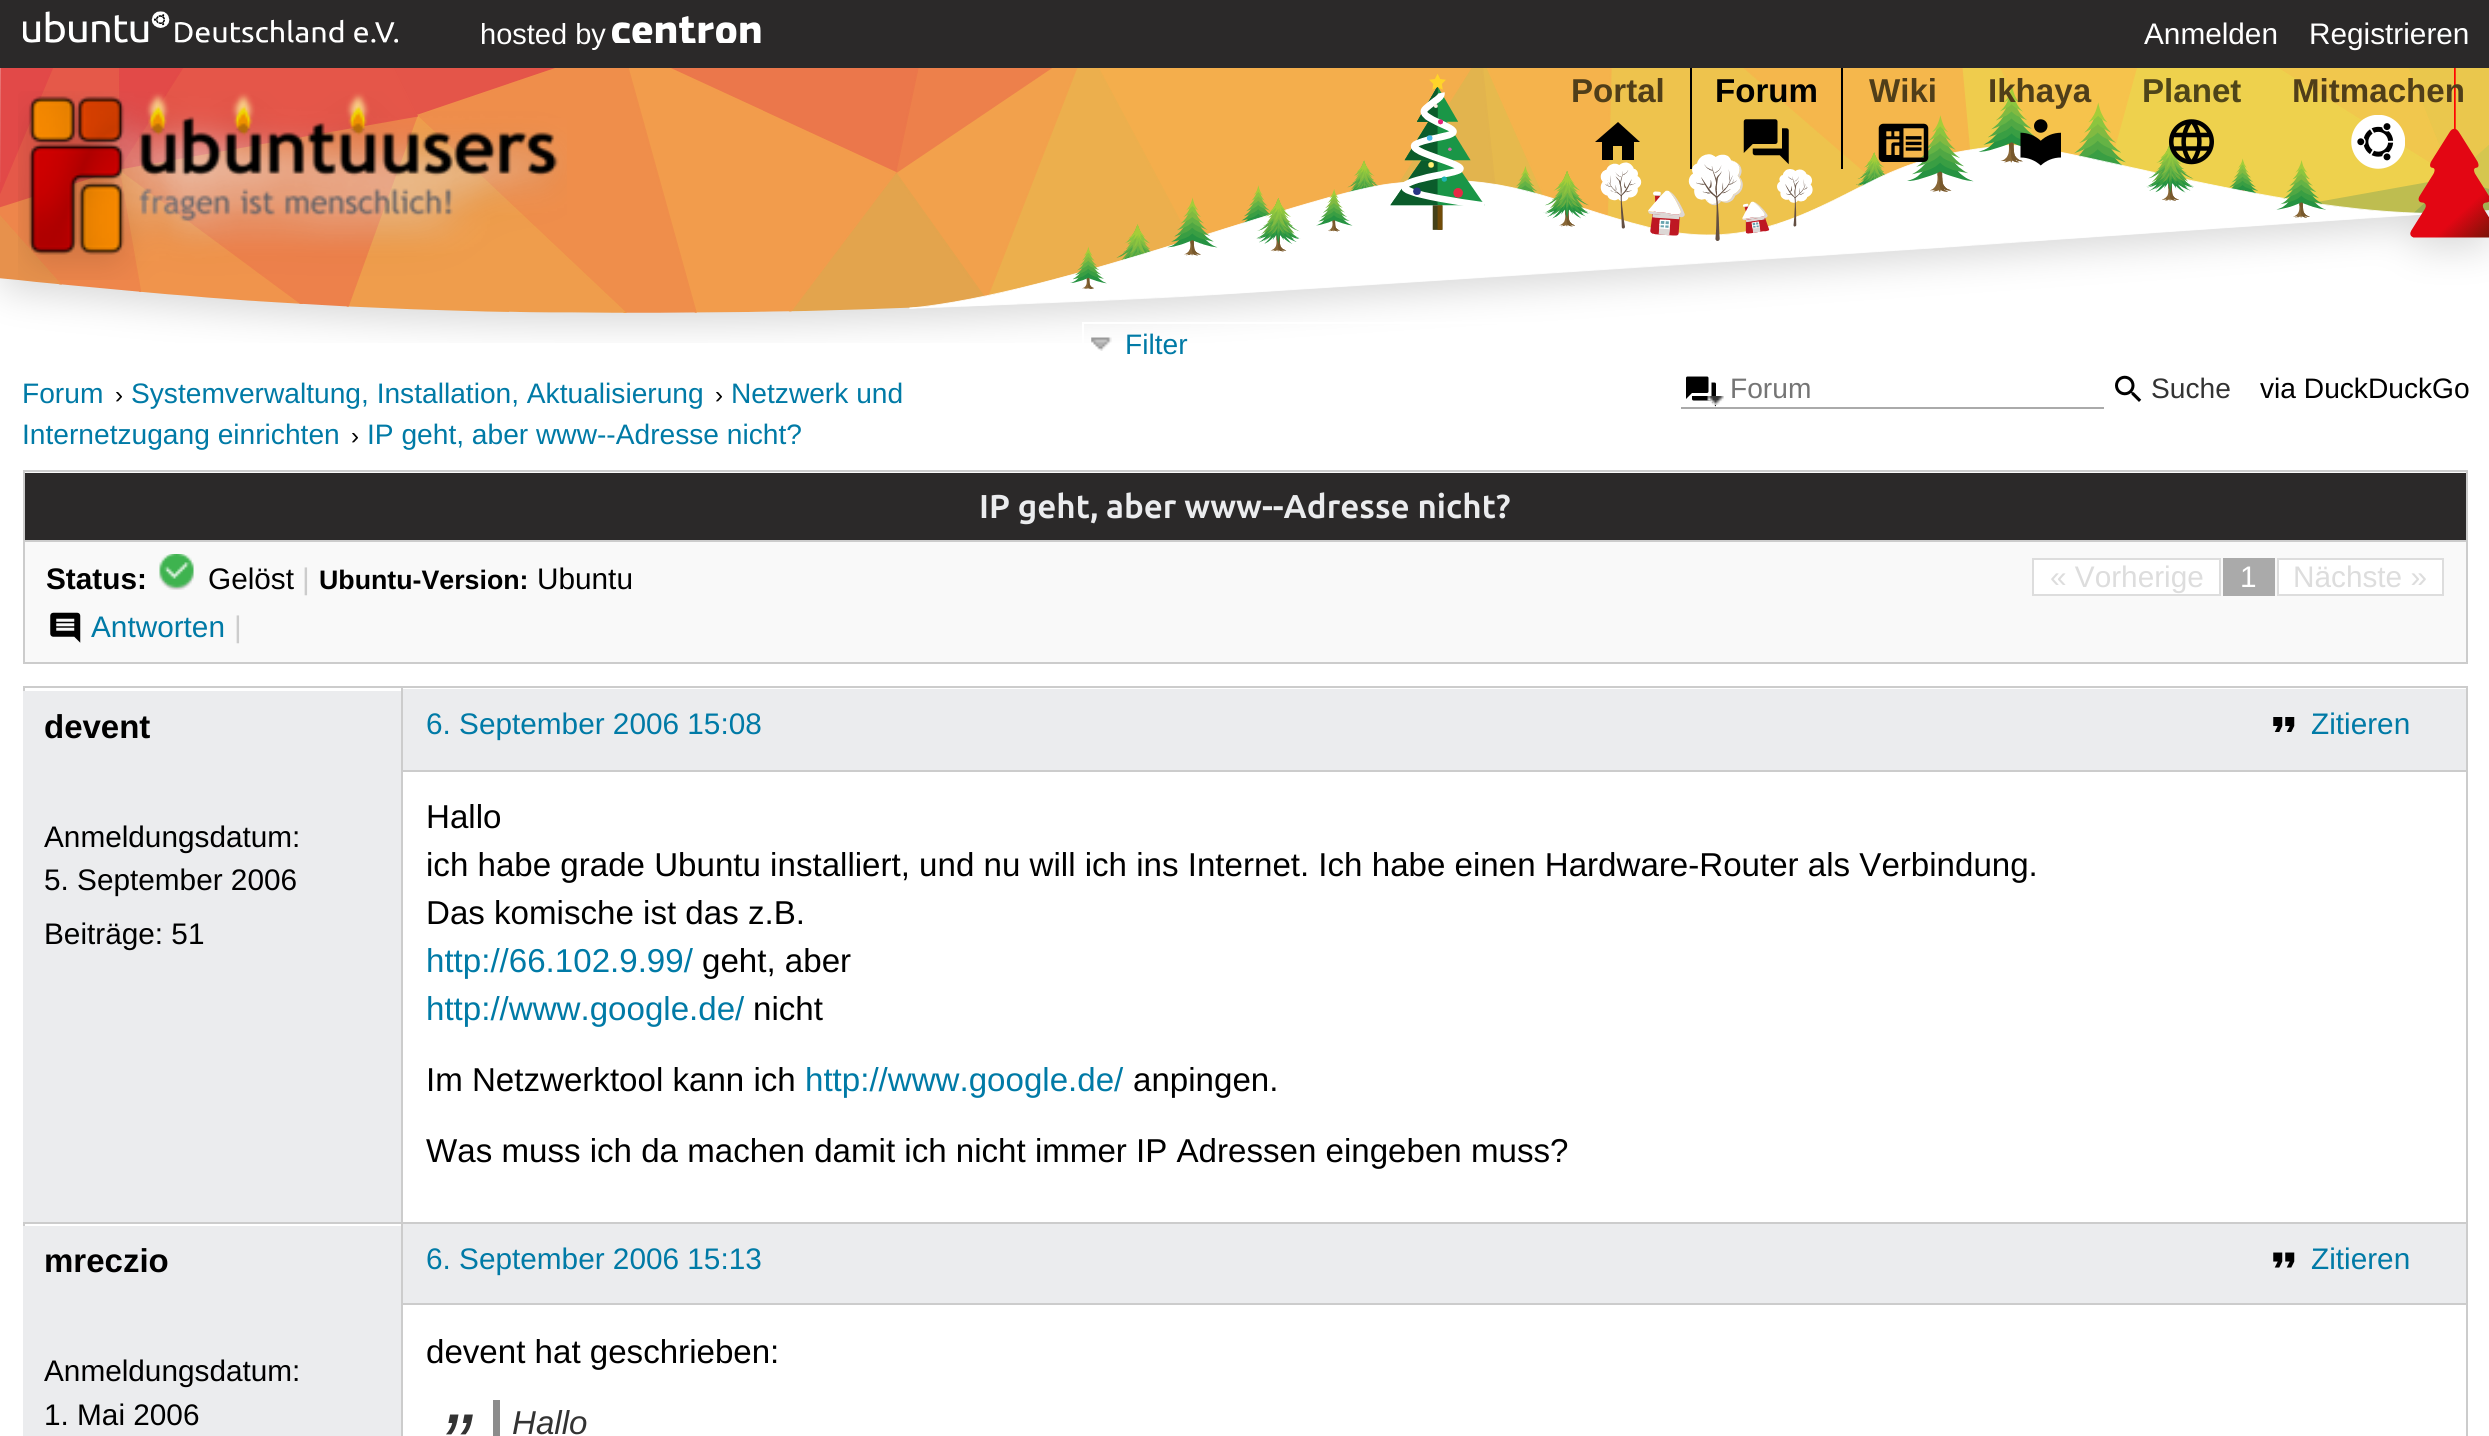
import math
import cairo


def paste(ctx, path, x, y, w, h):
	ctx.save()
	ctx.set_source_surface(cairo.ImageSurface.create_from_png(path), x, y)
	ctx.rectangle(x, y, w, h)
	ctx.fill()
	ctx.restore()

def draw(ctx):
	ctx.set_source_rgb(1, 1, 1)
	ctx.paint()
	ctx.set_source_rgb(0.169, 0.161, 0.161)
	ctx.rectangle(0, 0, 2489, 68)
	ctx.fill()
	paste(ctx, 'media/1.png', 23, 11, 375, 32)
	ctx.select_font_face('Liberation Sans')
	ctx.set_font_size(29)
	ctx.set_source_rgb(1, 1, 1)
	ctx.move_to(480, 44)
	ctx.show_text('hosted by')
	paste(ctx, 'media/2.png', 612, 16, 149, 27)
	ctx.set_font_size(29.75)
	ctx.move_to(2144, 44)
	ctx.show_text('Anmelden')
	ctx.move_to(2309, 44)
	ctx.show_text('Registrieren')
	paste(ctx, 'media/3.png', 0, 68, 2489, 275)
	paste(ctx, 'media/4.png', 18, 91, 549, 189)
	ctx.select_font_face('Liberation Sans', cairo.FONT_SLANT_NORMAL, cairo.FONT_WEIGHT_BOLD)
	ctx.set_font_size(33.1)
	ctx.set_source_rgb(0.314, 0.243, 0.098)
	ctx.move_to(1571, 102)
	ctx.show_text('Portal')
	ctx.set_source_rgb(0, 0, 0)
	ctx.new_path()
	ctx.move_to(1613, 160)
	ctx.line_to(1613, 146)
	ctx.line_to(1622, 146)
	ctx.line_to(1622, 160)
	ctx.line_to(1634, 160)
	ctx.line_to(1634, 142)
	ctx.line_to(1640, 142)
	ctx.line_to(1618, 122)
	ctx.line_to(1595, 142)
	ctx.line_to(1602, 142)
	ctx.line_to(1602, 160)
	ctx.close_path()
	ctx.fill()
	ctx.rectangle(1841, 68, 2, 101)
	ctx.fill()
	ctx.rectangle(1690, 68, 2, 101)
	ctx.fill()
	ctx.move_to(1715, 102)
	ctx.show_text('Forum')
	paste(ctx, 'media/5.png', 1743, 119, 46, 46)
	ctx.set_source_rgb(0.314, 0.243, 0.098)
	ctx.move_to(1869, 102)
	ctx.show_text('Wiki')
	paste(ctx, 'media/6.png', 1878, 123, 51, 39)
	ctx.move_to(1988, 102)
	ctx.show_text('Ikhaya')
	paste(ctx, 'media/7.png', 2020, 119, 41, 47)
	ctx.set_source_rgb(0.31, 0.271, 0.098)
	ctx.move_to(2142, 102)
	ctx.show_text('Planet')
	paste(ctx, 'media/8.png', 2169, 119, 45, 46)
	ctx.set_source_rgb(0.314, 0.243, 0.098)
	ctx.move_to(2292, 102)
	ctx.show_text('Mitmachen')
	paste(ctx, 'media/9.png', 2351, 115, 54, 54)
	ctx.rectangle(1083, 323, 543, 50)
	ctx.set_source_rgb(1, 1, 1)
	ctx.stroke()
	paste(ctx, 'media/10.png', 1091, 337, 21, 14)
	ctx.select_font_face('Liberation Sans')
	ctx.set_font_size(28.15)
	ctx.set_source_rgb(0, 0.478, 0.651)
	ctx.move_to(1125, 354)
	ctx.show_text('Filter')
	ctx.move_to(22, 403)
	ctx.show_text('Forum')
	ctx.set_font_size(24)
	ctx.set_source_rgb(0, 0, 0)
	ctx.move_to(115, 403)
	ctx.show_text('›')
	ctx.set_font_size(28.15)
	ctx.set_source_rgb(0, 0.478, 0.651)
	ctx.move_to(131, 403)
	ctx.show_text('Systemverwaltung, Installation, Aktualisierung')
	ctx.set_font_size(24)
	ctx.set_source_rgb(0, 0, 0)
	ctx.move_to(715, 403)
	ctx.show_text('›')
	ctx.set_font_size(28.15)
	ctx.set_source_rgb(0, 0.478, 0.651)
	ctx.move_to(731, 403)
	ctx.show_text('Netzwerk und')
	ctx.move_to(22, 444)
	ctx.show_text('Internetzugang einrichten')
	ctx.set_font_size(24)
	ctx.set_source_rgb(0, 0, 0)
	ctx.move_to(351, 444)
	ctx.show_text('›')
	ctx.set_font_size(28.15)
	ctx.set_source_rgb(0, 0.478, 0.651)
	ctx.move_to(367, 444)
	ctx.show_text('IP geht, aber www--Adresse nicht?')
	paste(ctx, 'media/11.png', 1686, 376, 30, 31)
	ctx.set_source_rgb(0.667, 0.667, 0.667)
	ctx.rectangle(1681, 407, 423, 2)
	ctx.fill()
	ctx.set_source_rgb(0.459, 0.459, 0.459)
	ctx.move_to(1730, 398)
	ctx.show_text('Forum')
	paste(ctx, 'media/12.png', 2115, 375, 27, 27)
	ctx.set_source_rgb(0.2, 0.2, 0.2)
	ctx.move_to(2151, 398)
	ctx.show_text('Suche')
	ctx.set_source_rgb(0, 0, 0)
	ctx.move_to(2260, 398)
	ctx.show_text('via DuckDuckGo')
	paste(ctx, 'media/13.png', 1707, 396, 17, 9)
	ctx.set_source_rgb(0.973, 0.973, 0.973)
	ctx.rectangle(24, 471, 2443, 192)
	ctx.fill_preserve()
	ctx.set_source_rgb(0.8, 0.8, 0.8)
	ctx.stroke()
	ctx.set_source_rgb(0.169, 0.161, 0.161)
	ctx.rectangle(25, 473, 2441, 67)
	ctx.fill()
	ctx.set_source_rgb(0.8, 0.8, 0.8)
	ctx.rectangle(25, 540, 2441, 2)
	ctx.fill()
	ctx.select_font_face('Ubuntu', cairo.FONT_SLANT_NORMAL, cairo.FONT_WEIGHT_BOLD)
	ctx.set_font_size(33.1)
	ctx.set_source_rgb(0.918, 0.925, 0.933)
	ctx.move_to(979, 518)
	ctx.show_text('IP geht, aber www--Adresse nicht?')
	ctx.select_font_face('Liberation Sans', cairo.FONT_SLANT_NORMAL, cairo.FONT_WEIGHT_BOLD)
	ctx.set_font_size(29.75)
	ctx.set_source_rgb(0, 0, 0)
	ctx.move_to(46, 589)
	ctx.show_text('Status:')
	paste(ctx, 'media/14.png', 159, 554, 35, 36)
	ctx.select_font_face('Liberation Sans')
	ctx.move_to(208, 589)
	ctx.show_text('Gelöst')
	ctx.set_source_rgb(0.8, 0.8, 0.8)
	ctx.move_to(302, 589)
	ctx.show_text('|')
	ctx.select_font_face('Liberation Sans', cairo.FONT_SLANT_NORMAL, cairo.FONT_WEIGHT_BOLD)
	ctx.set_font_size(26.75)
	ctx.set_source_rgb(0, 0, 0)
	ctx.move_to(319, 589)
	ctx.show_text('Ubuntu-Version:')
	ctx.select_font_face('Liberation Sans')
	ctx.set_font_size(29.75)
	ctx.move_to(537, 589)
	ctx.show_text('Ubuntu')
	ctx.set_source_rgb(1, 1, 1)
	ctx.rectangle(2033, 559, 187, 36)
	ctx.fill_preserve()
	ctx.set_source_rgb(0.867, 0.867, 0.867)
	ctx.stroke()
	ctx.move_to(2050, 587)
	ctx.show_text('« Vorherige')
	ctx.set_source_rgb(0.667, 0.667, 0.667)
	ctx.rectangle(2223, 558, 52, 38)
	ctx.fill()
	ctx.set_source_rgb(1, 1, 1)
	ctx.move_to(2240, 587)
	ctx.show_text('1')
	ctx.rectangle(2278, 559, 165, 36)
	ctx.fill_preserve()
	ctx.set_source_rgb(0.867, 0.867, 0.867)
	ctx.stroke()
	ctx.move_to(2293, 587)
	ctx.show_text('Nächste »')
	paste(ctx, 'media/15.png', 50, 612, 31, 31)
	ctx.set_source_rgb(0, 0.478, 0.651)
	ctx.move_to(91, 637)
	ctx.show_text('Antworten')
	ctx.set_source_rgb(0.8, 0.8, 0.8)
	ctx.move_to(234, 637)
	ctx.show_text('|')
	ctx.rectangle(23, 686, 2445, 2)
	ctx.rectangle(2466, 686, 2, 750)
	ctx.rectangle(23, 686, 2, 540)
	ctx.fill()
	ctx.set_source_rgb(0.918, 0.925, 0.933)
	ctx.rectangle(23, 691, 378, 531)
	ctx.fill()
	ctx.select_font_face('Liberation Sans', cairo.FONT_SLANT_NORMAL, cairo.FONT_WEIGHT_BOLD)
	ctx.set_font_size(33)
	ctx.set_source_rgb(0, 0, 0)
	ctx.move_to(44, 738)
	ctx.show_text('devent')
	ctx.select_font_face('Liberation Sans')
	ctx.set_font_size(29.75)
	for x, y, s in [
		(44, 847, 'Anmeldungsdatum:'),
		(44, 890, '5. September 2006'),
		(44, 944, 'Beiträge: 51'),
	]:
		ctx.move_to(x, y)
		ctx.show_text(s)
	ctx.set_source_rgb(0.918, 0.925, 0.933)
	ctx.rectangle(403, 689, 2063, 81)
	ctx.fill()
	ctx.set_source_rgb(0.8, 0.8, 0.8)
	ctx.rectangle(403, 770, 2063, 2)
	ctx.fill()
	ctx.set_source_rgb(0, 0.478, 0.651)
	ctx.move_to(426, 734)
	ctx.show_text('6. September 2006 15:08')
	paste(ctx, 'media/16.png', 2273, 717, 22, 15)
	ctx.move_to(2311, 734)
	ctx.show_text('Zitieren')
	ctx.set_font_size(33.1)
	ctx.set_source_rgb(0, 0, 0)
	for x, y, s in [
		(426, 828, 'Hallo'),
		(426, 876, 'ich habe grade Ubuntu installiert, und nu will ich ins Internet. Ich habe einen Hardware-Router als Verbindung.'),
		(426, 924, 'Das komische ist das z.B.'),
	]:
		ctx.move_to(x, y)
		ctx.show_text(s)
	ctx.set_source_rgb(0, 0.478, 0.651)
	ctx.move_to(426, 972)
	ctx.show_text('http://66.102.9.99/')
	ctx.set_source_rgb(0, 0, 0)
	ctx.move_to(702, 972)
	ctx.show_text('geht, aber')
	ctx.set_source_rgb(0, 0.478, 0.651)
	ctx.move_to(426, 1020)
	ctx.show_text('http://www.google.de/')
	ctx.set_source_rgb(0, 0, 0)
	ctx.move_to(753, 1020)
	ctx.show_text('nicht')
	ctx.move_to(426, 1091)
	ctx.show_text('Im Netzwerktool kann ich')
	ctx.set_source_rgb(0, 0.478, 0.651)
	ctx.move_to(805, 1091)
	ctx.show_text('http://www.google.de/')
	ctx.set_source_rgb(0, 0, 0)
	ctx.move_to(1133, 1091)
	ctx.show_text('anpingen.')
	ctx.move_to(426, 1162)
	ctx.show_text('Was muss ich da machen damit ich nicht immer IP Adressen eingeben muss?')
	ctx.set_source_rgb(0.8, 0.8, 0.8)
	ctx.rectangle(23, 1222, 2445, 2)
	ctx.rectangle(401, 686, 2, 750)
	ctx.fill()
	ctx.set_source_rgb(0.918, 0.925, 0.933)
	ctx.rectangle(23, 1226, 378, 210)
	ctx.fill()
	ctx.select_font_face('Liberation Sans', cairo.FONT_SLANT_NORMAL, cairo.FONT_WEIGHT_BOLD)
	ctx.set_font_size(33)
	ctx.set_source_rgb(0, 0, 0)
	ctx.move_to(44, 1272)
	ctx.show_text('mreczio')
	ctx.select_font_face('Liberation Sans')
	ctx.set_font_size(29.75)
	ctx.move_to(44, 1381)
	ctx.show_text('Anmeldungsdatum:')
	ctx.move_to(44, 1425)
	ctx.show_text('1. Mai 2006')
	ctx.set_source_rgb(0.918, 0.925, 0.933)
	ctx.rectangle(403, 1224, 2063, 79)
	ctx.fill()
	ctx.set_source_rgb(0.8, 0.8, 0.8)
	ctx.rectangle(403, 1303, 2063, 2)
	ctx.fill()
	ctx.set_source_rgb(0, 0.478, 0.651)
	ctx.move_to(426, 1269)
	ctx.show_text('6. September 2006 15:13')
	paste(ctx, 'media/17.png', 2273, 1252, 22, 16)
	ctx.move_to(2311, 1269)
	ctx.show_text('Zitieren')
	ctx.set_font_size(33.1)
	ctx.set_source_rgb(0, 0, 0)
	ctx.move_to(426, 1363)
	ctx.show_text('devent hat geschrieben:')
	ctx.set_source_rgb(0.549, 0.549, 0.549)
	ctx.rectangle(493, 1400, 7, 36)
	ctx.fill()
	ctx.select_font_face('Liberation Sans', cairo.FONT_SLANT_ITALIC)
	ctx.set_font_size(89)
	ctx.set_source_rgb(0.2, 0.2, 0.2)
	ctx.move_to(449, 1423)
	ctx.show_text('„')
	ctx.set_font_size(33.1)
	ctx.move_to(512, 1434)
	ctx.show_text('Hallo')


surface = cairo.ImageSurface(cairo.FORMAT_RGB24, 2489, 1436)
ctx = cairo.Context(surface)
options = cairo.FontOptions()
options.set_hint_metrics(cairo.HINT_METRICS_OFF)
options.set_hint_style(cairo.HINT_STYLE_NONE)
ctx.set_font_options(options)
ctx.set_miter_limit(4)
draw(ctx)
surface.write_to_png('image.png')
